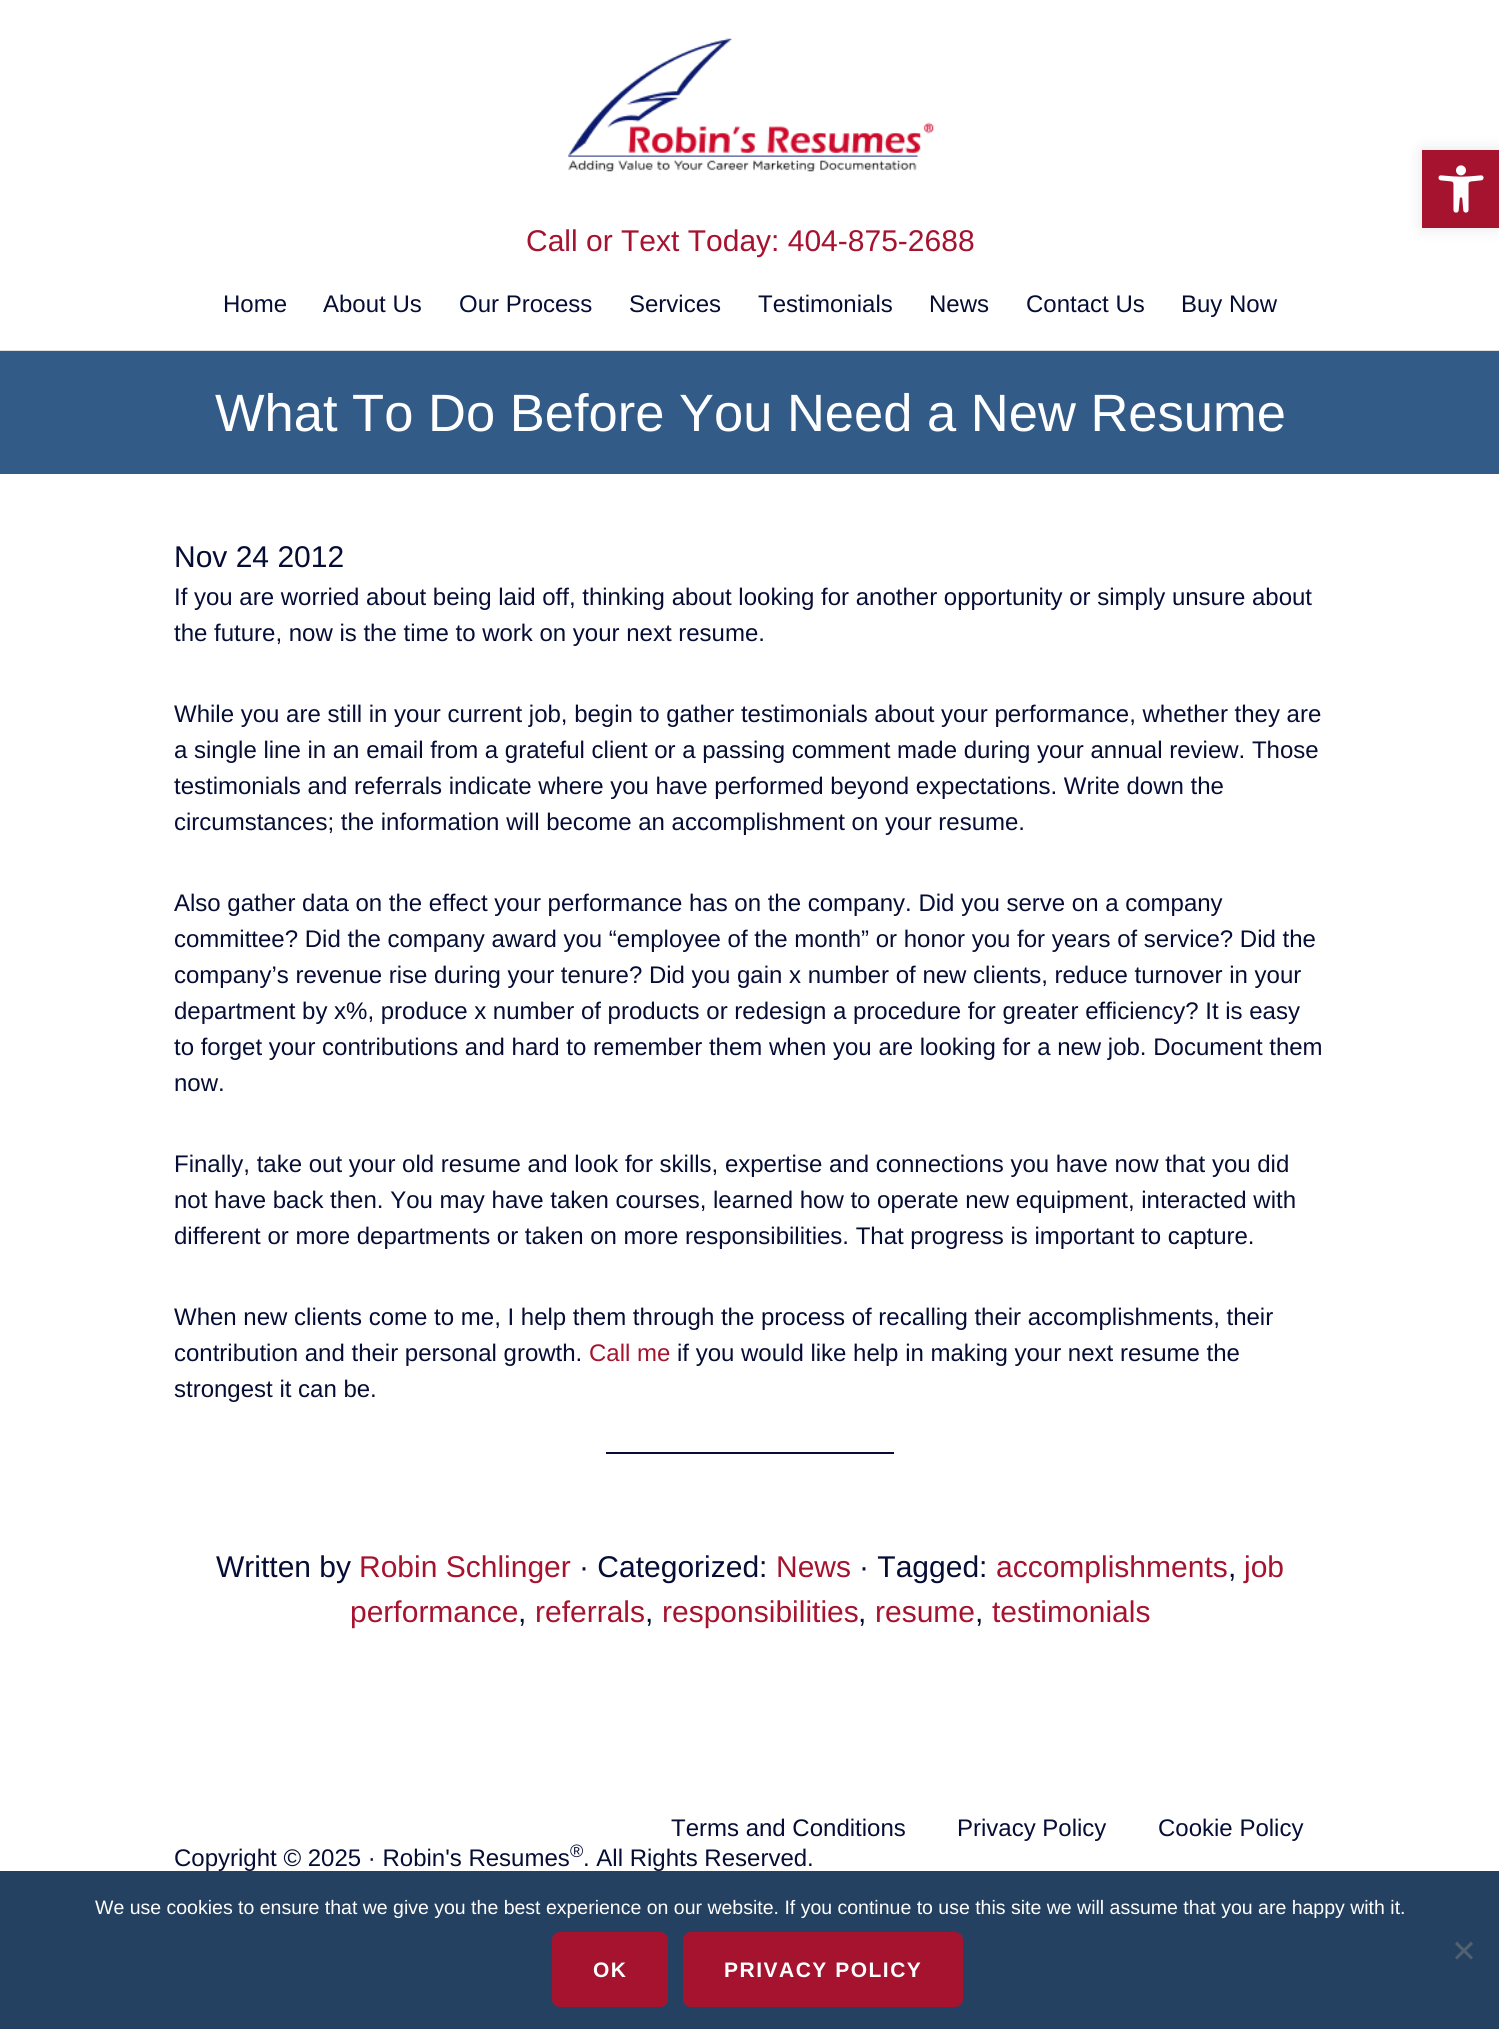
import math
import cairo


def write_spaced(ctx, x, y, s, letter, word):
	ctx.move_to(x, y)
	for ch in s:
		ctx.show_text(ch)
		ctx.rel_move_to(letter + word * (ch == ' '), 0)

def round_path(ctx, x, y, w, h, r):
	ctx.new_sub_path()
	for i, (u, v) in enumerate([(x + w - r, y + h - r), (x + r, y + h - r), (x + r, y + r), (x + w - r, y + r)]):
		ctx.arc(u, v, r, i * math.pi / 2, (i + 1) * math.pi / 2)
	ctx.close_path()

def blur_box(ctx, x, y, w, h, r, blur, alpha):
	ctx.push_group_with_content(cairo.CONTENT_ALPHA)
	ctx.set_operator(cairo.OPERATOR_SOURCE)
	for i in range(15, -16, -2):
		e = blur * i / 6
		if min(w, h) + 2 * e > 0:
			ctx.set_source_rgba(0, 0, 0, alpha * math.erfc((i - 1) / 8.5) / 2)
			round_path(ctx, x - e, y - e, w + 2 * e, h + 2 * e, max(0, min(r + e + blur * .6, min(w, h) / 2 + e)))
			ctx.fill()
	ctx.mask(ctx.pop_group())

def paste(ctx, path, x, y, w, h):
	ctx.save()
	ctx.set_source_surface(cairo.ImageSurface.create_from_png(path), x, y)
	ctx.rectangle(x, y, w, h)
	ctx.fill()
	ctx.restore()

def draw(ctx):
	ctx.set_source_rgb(1, 1, 1)
	ctx.paint()
	ctx.set_source_rgb(0, 0, 0)
	blur_box(ctx, 1422, 150, 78, 78, 0, 7.5, 0.1)
	ctx.set_source_rgb(0.651, 0.078, 0.184)
	ctx.rectangle(1422, 150, 77, 78)
	ctx.fill()
	paste(ctx, 'media/1.png', 1438, 165, 46, 48)
	ctx.set_source_rgb(0.867, 0.867, 0.867)
	ctx.rectangle(0, 350, 1499, 1)
	ctx.fill()
	paste(ctx, 'media/2.png', 568, 38, 366, 134)
	ctx.select_font_face('Liberation Sans')
	ctx.set_font_size(30)
	ctx.set_source_rgb(0.651, 0.078, 0.184)
	ctx.move_to(526, 251)
	ctx.show_text('Call or Text Today: 404-875-2688')
	ctx.set_font_size(24)
	ctx.set_source_rgb(0.024, 0.051, 0.208)
	for x, y, s in [
		(223, 312, 'Home'),
		(323, 312, 'About Us'),
		(459, 312, 'Our Process'),
		(629, 312, 'Services'),
		(758, 312, 'Testimonials'),
		(929, 312, 'News'),
		(1026, 312, 'Contact Us'),
		(1181, 312, 'Buy Now'),
	]:
		ctx.move_to(x, y)
		ctx.show_text(s)
	ctx.set_source_rgb(0.196, 0.357, 0.533)
	ctx.rectangle(0, 351, 1499, 123)
	ctx.fill()
	ctx.set_font_size(52.5)
	ctx.set_source_rgb(1, 1, 1)
	ctx.move_to(215, 431)
	ctx.show_text('What To Do Before You Need a New Resume')
	ctx.set_font_size(30)
	ctx.set_source_rgb(0.024, 0.051, 0.208)
	ctx.move_to(174, 567)
	ctx.show_text('Nov 24 2012')
	ctx.set_font_size(24)
	for x, y, s in [
		(174, 605, 'If you are worried about being laid off, thinking about looking for another opportunity or simply unsure about'),
		(174, 641, 'the future, now is the time to work on your next resume.'),
		(174, 722, 'While you are still in your current job, begin to gather testimonials about your performance, whether they are'),
		(174, 758, 'a single line in an email from a grateful client or a passing comment made during your annual review. Those'),
		(174, 794, 'testimonials and referrals indicate where you have performed beyond expectations. Write down the'),
		(174, 830, 'circumstances; the information will become an accomplishment on your resume.'),
		(174, 911, 'Also gather data on the effect your performance has on the company. Did you serve on a company'),
		(174, 947, 'committee? Did the company award you “employee of the month” or honor you for years of service? Did the'),
		(174, 983, 'company’s revenue rise during your tenure? Did you gain x number of new clients, reduce turnover in your'),
		(174, 1019, 'department by x%, produce x number of products or redesign a procedure for greater efficiency? It is easy'),
		(174, 1055, 'to forget your contributions and hard to remember them when you are looking for a new job. Document them'),
		(174, 1091, 'now.'),
		(174, 1172, 'Finally, take out your old resume and look for skills, expertise and connections you have now that you did'),
		(174, 1208, 'not have back then. You may have taken courses, learned how to operate new equipment, interacted with'),
		(174, 1244, 'different or more departments or taken on more responsibilities. That progress is important to capture.'),
		(174, 1325, 'When new clients come to me, I help them through the process of recalling their accomplishments, their'),
		(174, 1361, 'contribution and their personal growth.'),
	]:
		ctx.move_to(x, y)
		ctx.show_text(s)
	ctx.set_source_rgb(0.651, 0.078, 0.184)
	ctx.move_to(589, 1361)
	ctx.show_text('Call me')
	ctx.set_source_rgb(0.024, 0.051, 0.208)
	ctx.move_to(677, 1361)
	ctx.show_text('if you would like help in making your next resume the')
	ctx.move_to(174, 1397)
	ctx.show_text('strongest it can be.')
	ctx.rectangle(606, 1452, 288, 2)
	ctx.fill()
	ctx.set_font_size(30)
	ctx.move_to(216, 1577)
	ctx.show_text('Written by')
	ctx.set_source_rgb(0.651, 0.078, 0.184)
	ctx.move_to(359, 1577)
	ctx.show_text('Robin Schlinger')
	ctx.set_source_rgb(0.024, 0.051, 0.208)
	ctx.move_to(579, 1577)
	ctx.show_text('· Categorized:')
	ctx.set_source_rgb(0.651, 0.078, 0.184)
	ctx.move_to(776, 1577)
	ctx.show_text('News')
	ctx.set_source_rgb(0.024, 0.051, 0.208)
	ctx.move_to(859, 1577)
	ctx.show_text('· Tagged:')
	ctx.set_source_rgb(0.651, 0.078, 0.184)
	ctx.move_to(996, 1577)
	ctx.show_text('accomplishments')
	ctx.set_source_rgb(0.024, 0.051, 0.208)
	ctx.move_to(1228, 1577)
	ctx.show_text(',')
	ctx.set_source_rgb(0.651, 0.078, 0.184)
	ctx.move_to(1244, 1577)
	ctx.show_text('job')
	ctx.move_to(350, 1622)
	ctx.show_text('performance')
	ctx.set_source_rgb(0.024, 0.051, 0.208)
	ctx.move_to(518, 1622)
	ctx.show_text(',')
	ctx.set_source_rgb(0.651, 0.078, 0.184)
	ctx.move_to(535, 1622)
	ctx.show_text('referrals')
	ctx.set_source_rgb(0.024, 0.051, 0.208)
	ctx.move_to(645, 1622)
	ctx.show_text(',')
	ctx.set_source_rgb(0.651, 0.078, 0.184)
	ctx.move_to(662, 1622)
	ctx.show_text('responsibilities')
	ctx.set_source_rgb(0.024, 0.051, 0.208)
	ctx.move_to(858, 1622)
	ctx.show_text(',')
	ctx.set_source_rgb(0.651, 0.078, 0.184)
	ctx.move_to(875, 1622)
	ctx.show_text('resume')
	ctx.set_source_rgb(0.024, 0.051, 0.208)
	ctx.move_to(975, 1622)
	ctx.show_text(',')
	ctx.set_source_rgb(0.651, 0.078, 0.184)
	ctx.move_to(992, 1622)
	ctx.show_text('testimonials')
	ctx.set_font_size(24)
	ctx.set_source_rgb(0.024, 0.051, 0.208)
	for x, y, s in [
		(671, 1836, 'Terms and Conditions'),
		(957, 1836, 'Privacy Policy'),
		(1158, 1836, 'Cookie Policy'),
		(174, 1866, 'Copyright © 2025 · Robin\'s Resumes'),
	]:
		ctx.move_to(x, y)
		ctx.show_text(s)
	ctx.set_font_size(18)
	ctx.move_to(570, 1857)
	ctx.show_text('®')
	ctx.set_font_size(24)
	ctx.move_to(583, 1866)
	ctx.show_text('. All Rights Reserved.')
	ctx.set_source_rgb(0.141, 0.255, 0.38)
	ctx.rectangle(0, 1871, 1499, 158)
	ctx.fill()
	ctx.set_font_size(19.5)
	ctx.set_source_rgb(1, 1, 1)
	ctx.move_to(95, 1914)
	ctx.show_text('We use cookies to ensure that we give you the best experience on our website. If you continue to use this site we will assume that you are happy with it.')
	ctx.set_source_rgb(0.322, 0.38, 0.443)
	ctx.new_path()
	ctx.move_to(1471, 1941.5)
	ctx.line_to(1473, 1944)
	ctx.line_to(1457, 1959.5)
	ctx.line_to(1455, 1957.5)
	ctx.close_path()
	ctx.fill()
	ctx.new_path()
	ctx.move_to(1455, 1944)
	ctx.line_to(1457, 1941.5)
	ctx.line_to(1473, 1957.5)
	ctx.line_to(1471, 1959.5)
	ctx.close_path()
	ctx.fill()
	ctx.set_source_rgb(0.651, 0.078, 0.184)
	round_path(ctx, 553.5, 1933.5, 113, 72, 6.5)
	ctx.fill_preserve()
	ctx.set_line_width(3)
	ctx.stroke()
	ctx.select_font_face('Liberation Sans', cairo.FONT_SLANT_NORMAL, cairo.FONT_WEIGHT_BOLD)
	ctx.set_font_size(21)
	ctx.set_source_rgb(1, 1, 1)
	write_spaced(ctx, 593, 1977, 'OK', 1.5, 0)
	ctx.set_source_rgb(0.651, 0.078, 0.184)
	round_path(ctx, 684.5, 1933.5, 277, 72, 6.5)
	ctx.fill_preserve()
	ctx.stroke()
	ctx.set_source_rgb(1, 1, 1)
	write_spaced(ctx, 724, 1977, 'PRIVACY POLICY', 1.5, 0)


surface = cairo.ImageSurface(cairo.FORMAT_RGB24, 1499, 2029)
ctx = cairo.Context(surface)
options = cairo.FontOptions()
options.set_hint_metrics(cairo.HINT_METRICS_OFF)
options.set_hint_style(cairo.HINT_STYLE_NONE)
ctx.set_font_options(options)
ctx.set_miter_limit(4)
draw(ctx)
surface.write_to_png('image.png')
